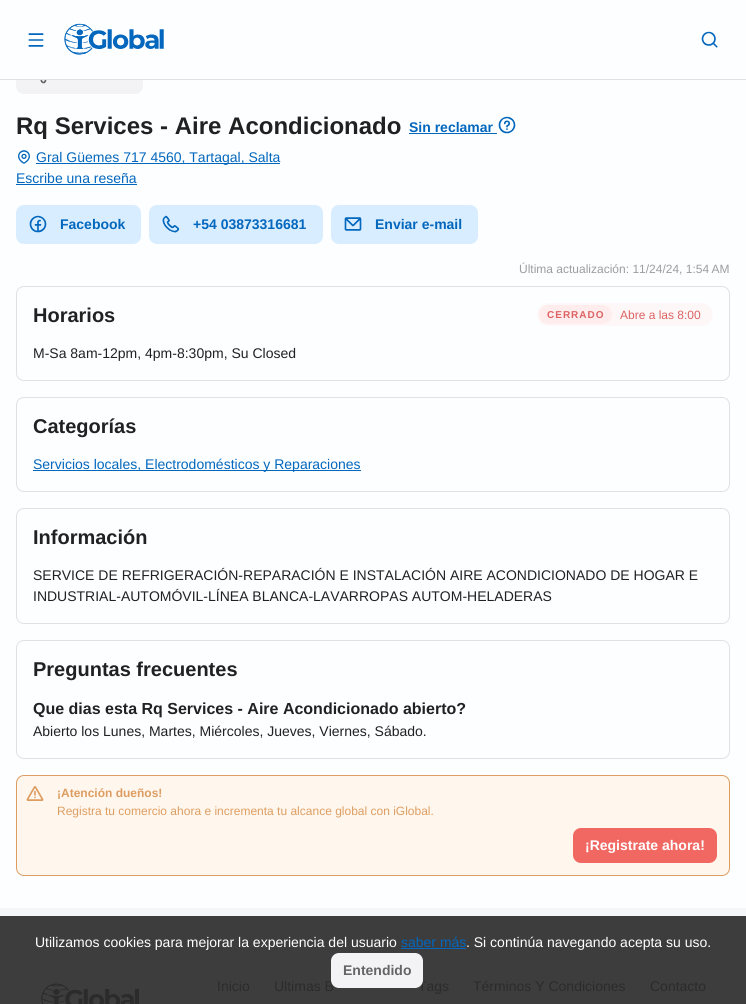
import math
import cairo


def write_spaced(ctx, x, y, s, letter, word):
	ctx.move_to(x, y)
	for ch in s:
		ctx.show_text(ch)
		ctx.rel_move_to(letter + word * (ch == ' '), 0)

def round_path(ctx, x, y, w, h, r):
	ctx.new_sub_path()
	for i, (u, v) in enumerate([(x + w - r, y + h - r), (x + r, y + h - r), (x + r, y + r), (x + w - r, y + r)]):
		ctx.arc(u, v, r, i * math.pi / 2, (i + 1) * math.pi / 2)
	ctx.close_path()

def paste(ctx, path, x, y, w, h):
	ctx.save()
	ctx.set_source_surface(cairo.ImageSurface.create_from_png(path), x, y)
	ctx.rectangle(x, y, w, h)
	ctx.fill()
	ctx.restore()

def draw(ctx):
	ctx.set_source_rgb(0.988, 0.996, 1)
	ctx.paint()
	ctx.set_source_rgb(0.953, 0.953, 0.961)
	round_path(ctx, 16, 55, 127, 39, 8)
	ctx.fill()
	ctx.set_source_rgb(0.988, 0.996, 1)
	ctx.rectangle(16, 55, 127, 24)
	ctx.fill()
	ctx.set_source_rgb(0.882, 0.882, 0.898)
	ctx.rectangle(0, 79, 746, 1)
	ctx.fill()
	paste(ctx, 'media/1.png', 28, 33, 16, 14)
	paste(ctx, 'media/2.png', 64, 23, 100, 32)
	paste(ctx, 'media/3.png', 701, 31, 17, 17)
	paste(ctx, 'media/4.png', 40, 80, 7, 4)
	ctx.select_font_face('Liberation Sans', cairo.FONT_SLANT_NORMAL, cairo.FONT_WEIGHT_BOLD)
	ctx.set_font_size(24)
	ctx.set_source_rgb(0.129, 0.129, 0.129)
	ctx.move_to(16, 134)
	ctx.show_text('Rq Services - Aire Acondicionado')
	ctx.set_font_size(14)
	ctx.set_source_rgb(0.012, 0.404, 0.741)
	ctx.move_to(409, 132)
	ctx.show_text('Sin reclamar')
	ctx.rectangle(409, 133, 88, 1)
	ctx.fill()
	paste(ctx, 'media/5.png', 498, 116, 18, 18)
	paste(ctx, 'media/6.png', 18, 150, 12, 14)
	ctx.rectangle(36, 163, 244, 1)
	ctx.fill()
	ctx.select_font_face('Liberation Sans')
	ctx.move_to(36, 162)
	ctx.show_text('Gral Güemes 717 4560, Tartagal, Salta')
	ctx.move_to(16, 183)
	ctx.show_text('Escribe una reseña')
	ctx.rectangle(16, 184, 121, 1)
	ctx.fill()
	ctx.set_source_rgb(0.847, 0.929, 1)
	round_path(ctx, 16, 205, 125, 39, 8)
	ctx.fill()
	paste(ctx, 'media/7.png', 29, 215, 18, 18)
	ctx.select_font_face('Liberation Sans', cairo.FONT_SLANT_NORMAL, cairo.FONT_WEIGHT_BOLD)
	ctx.set_source_rgb(0.012, 0.404, 0.741)
	ctx.move_to(60, 229)
	ctx.show_text('Facebook')
	ctx.set_source_rgb(0.847, 0.929, 1)
	round_path(ctx, 149, 205, 174, 39, 8)
	ctx.fill()
	paste(ctx, 'media/8.png', 162, 215, 18, 18)
	ctx.set_source_rgb(0.012, 0.404, 0.741)
	ctx.move_to(193, 229)
	ctx.show_text('+54 03873316681')
	ctx.set_source_rgb(0.847, 0.929, 1)
	round_path(ctx, 331, 205, 147, 39, 8)
	ctx.fill()
	paste(ctx, 'media/9.png', 344, 217, 18, 14)
	ctx.set_source_rgb(0.012, 0.404, 0.741)
	ctx.move_to(375, 229)
	ctx.show_text('Enviar e-mail')
	ctx.select_font_face('Liberation Sans')
	ctx.set_font_size(12)
	ctx.set_source_rgb(0.616, 0.612, 0.62)
	ctx.move_to(519, 273)
	ctx.show_text('Última actualización: 11/24/24, 1:54 AM')
	round_path(ctx, 16.5, 286.5, 713, 94, 7.5)
	ctx.set_source_rgb(0.882, 0.882, 0.898)
	ctx.set_line_width(1)
	ctx.stroke()
	ctx.select_font_face('Liberation Sans', cairo.FONT_SLANT_NORMAL, cairo.FONT_WEIGHT_BOLD)
	ctx.set_font_size(20)
	ctx.set_source_rgb(0.129, 0.129, 0.129)
	ctx.move_to(33, 322)
	ctx.show_text('Horarios')
	ctx.set_source_rgb(0.992, 0.965, 0.969)
	round_path(ctx, 537, 303, 176, 23, 11.5)
	ctx.fill()
	ctx.set_source_rgb(1, 0.929, 0.929)
	round_path(ctx, 539, 305, 73, 19, 9.5)
	ctx.fill()
	ctx.set_font_size(10)
	ctx.set_source_rgb(0.867, 0.384, 0.384)
	write_spaced(ctx, 547, 318, 'CERRADO', 1, 0)
	ctx.select_font_face('Liberation Sans')
	ctx.set_font_size(12)
	ctx.move_to(620, 319)
	ctx.show_text('Abre a las 8:00')
	ctx.set_font_size(14)
	ctx.set_source_rgb(0.129, 0.129, 0.129)
	ctx.move_to(33, 358)
	ctx.show_text('M-Sa 8am-12pm, 4pm-8:30pm, Su Closed')
	round_path(ctx, 16.5, 397.5, 713, 94, 7.5)
	ctx.set_source_rgb(0.882, 0.882, 0.898)
	ctx.stroke()
	ctx.select_font_face('Liberation Sans', cairo.FONT_SLANT_NORMAL, cairo.FONT_WEIGHT_BOLD)
	ctx.set_font_size(20)
	ctx.set_source_rgb(0.129, 0.129, 0.129)
	ctx.move_to(33, 433)
	ctx.show_text('Categorías')
	ctx.set_source_rgb(0.012, 0.404, 0.741)
	ctx.rectangle(33, 470, 328, 1)
	ctx.fill()
	ctx.select_font_face('Liberation Sans')
	ctx.set_font_size(14)
	ctx.move_to(33, 469)
	ctx.show_text('Servicios locales, Electrodomésticos y Reparaciones')
	round_path(ctx, 16.5, 508.5, 713, 115, 7.5)
	ctx.set_source_rgb(0.882, 0.882, 0.898)
	ctx.stroke()
	ctx.select_font_face('Liberation Sans', cairo.FONT_SLANT_NORMAL, cairo.FONT_WEIGHT_BOLD)
	ctx.set_font_size(20)
	ctx.set_source_rgb(0.129, 0.129, 0.129)
	ctx.move_to(33, 544)
	ctx.show_text('Información')
	ctx.select_font_face('Liberation Sans')
	ctx.set_font_size(14)
	ctx.move_to(33, 580)
	ctx.show_text('SERVICE DE REFRIGERACIÓN-REPARACIÓN E INSTALACIÓN AIRE ACONDICIONADO DE HOGAR E')
	ctx.move_to(33, 601)
	ctx.show_text('INDUSTRIAL-AUTOMÓVIL-LÍNEA BLANCA-LAVARROPAS AUTOM-HELADERAS')
	round_path(ctx, 16.5, 640.5, 713, 118, 7.5)
	ctx.set_source_rgb(0.882, 0.882, 0.898)
	ctx.stroke()
	ctx.select_font_face('Liberation Sans', cairo.FONT_SLANT_NORMAL, cairo.FONT_WEIGHT_BOLD)
	ctx.set_font_size(20)
	ctx.set_source_rgb(0.129, 0.129, 0.129)
	ctx.move_to(33, 676)
	ctx.show_text('Preguntas frecuentes')
	ctx.set_font_size(16)
	ctx.move_to(33, 714)
	ctx.show_text('Que dias esta Rq Services - Aire Acondicionado abierto?')
	ctx.select_font_face('Liberation Sans')
	ctx.set_font_size(14)
	ctx.move_to(33, 736)
	ctx.show_text('Abierto los Lunes, Martes, Miércoles, Jueves, Viernes, Sábado.')
	ctx.set_source_rgb(1, 0.965, 0.929)
	round_path(ctx, 16.5, 775.5, 713, 100, 7.5)
	ctx.fill_preserve()
	ctx.set_source_rgb(0.867, 0.616, 0.384)
	ctx.stroke()
	paste(ctx, 'media/10.png', 26, 786, 18, 15)
	ctx.select_font_face('Liberation Sans', cairo.FONT_SLANT_NORMAL, cairo.FONT_WEIGHT_BOLD)
	ctx.set_font_size(12)
	ctx.move_to(57, 797)
	ctx.show_text('¡Atención dueños!')
	ctx.select_font_face('Liberation Sans')
	ctx.move_to(57, 815)
	ctx.show_text('Registra tu comercio ahora e incrementa tu alcance global con iGlobal.')
	ctx.set_source_rgb(0.945, 0.408, 0.384)
	round_path(ctx, 573, 828, 144, 35, 8)
	ctx.fill()
	ctx.select_font_face('Liberation Sans', cairo.FONT_SLANT_NORMAL, cairo.FONT_WEIGHT_BOLD)
	ctx.set_font_size(14)
	ctx.set_source_rgb(1, 1, 1)
	ctx.move_to(585, 850)
	ctx.show_text('¡Registrate ahora!')
	ctx.set_source_rgb(0.239, 0.239, 0.243)
	ctx.rectangle(0, 916, 746, 88)
	ctx.fill()
	ctx.select_font_face('Liberation Sans')
	ctx.set_source_rgb(1, 1, 1)
	ctx.move_to(35, 947)
	ctx.show_text('Utilizamos cookies para mejorar la experiencia del usuario')
	ctx.set_source_rgb(0.012, 0.404, 0.741)
	ctx.move_to(401, 947)
	ctx.show_text('saber más')
	ctx.rectangle(401, 948, 65, 1)
	ctx.fill()
	ctx.set_source_rgb(1, 1, 1)
	ctx.move_to(466, 947)
	ctx.show_text('. Si continúa navegando acepta su uso.')
	ctx.set_source_rgb(0.169, 0.169, 0.169)
	ctx.move_to(274, 991)
	ctx.show_text('Ultimas B')
	ctx.move_to(418, 991)
	ctx.show_text('Tags')
	ctx.set_source_rgb(0.953, 0.953, 0.961)
	round_path(ctx, 331, 953, 92, 35, 8)
	ctx.fill()
	ctx.select_font_face('Liberation Sans', cairo.FONT_SLANT_NORMAL, cairo.FONT_WEIGHT_BOLD)
	ctx.set_source_rgb(0.396, 0.396, 0.4)
	ctx.move_to(343, 975)
	ctx.show_text('Entendido')
	ctx.set_source_rgb(0.957, 0.961, 0.965)
	ctx.rectangle(0, 908, 746, 8)
	ctx.fill()
	paste(ctx, 'media/11.png', 41, 983, 98, 21)
	ctx.select_font_face('Liberation Sans')
	ctx.set_source_rgb(0.169, 0.169, 0.169)
	for x, y, s in [
		(217, 991, 'Inicio'),
		(473, 991, 'Términos Y Condiciones'),
		(650, 991, 'Contacto'),
	]:
		ctx.move_to(x, y)
		ctx.show_text(s)


surface = cairo.ImageSurface(cairo.FORMAT_RGB24, 746, 1004)
ctx = cairo.Context(surface)
options = cairo.FontOptions()
options.set_hint_metrics(cairo.HINT_METRICS_OFF)
options.set_hint_style(cairo.HINT_STYLE_NONE)
ctx.set_font_options(options)
ctx.set_miter_limit(4)
draw(ctx)
surface.write_to_png('image.png')
